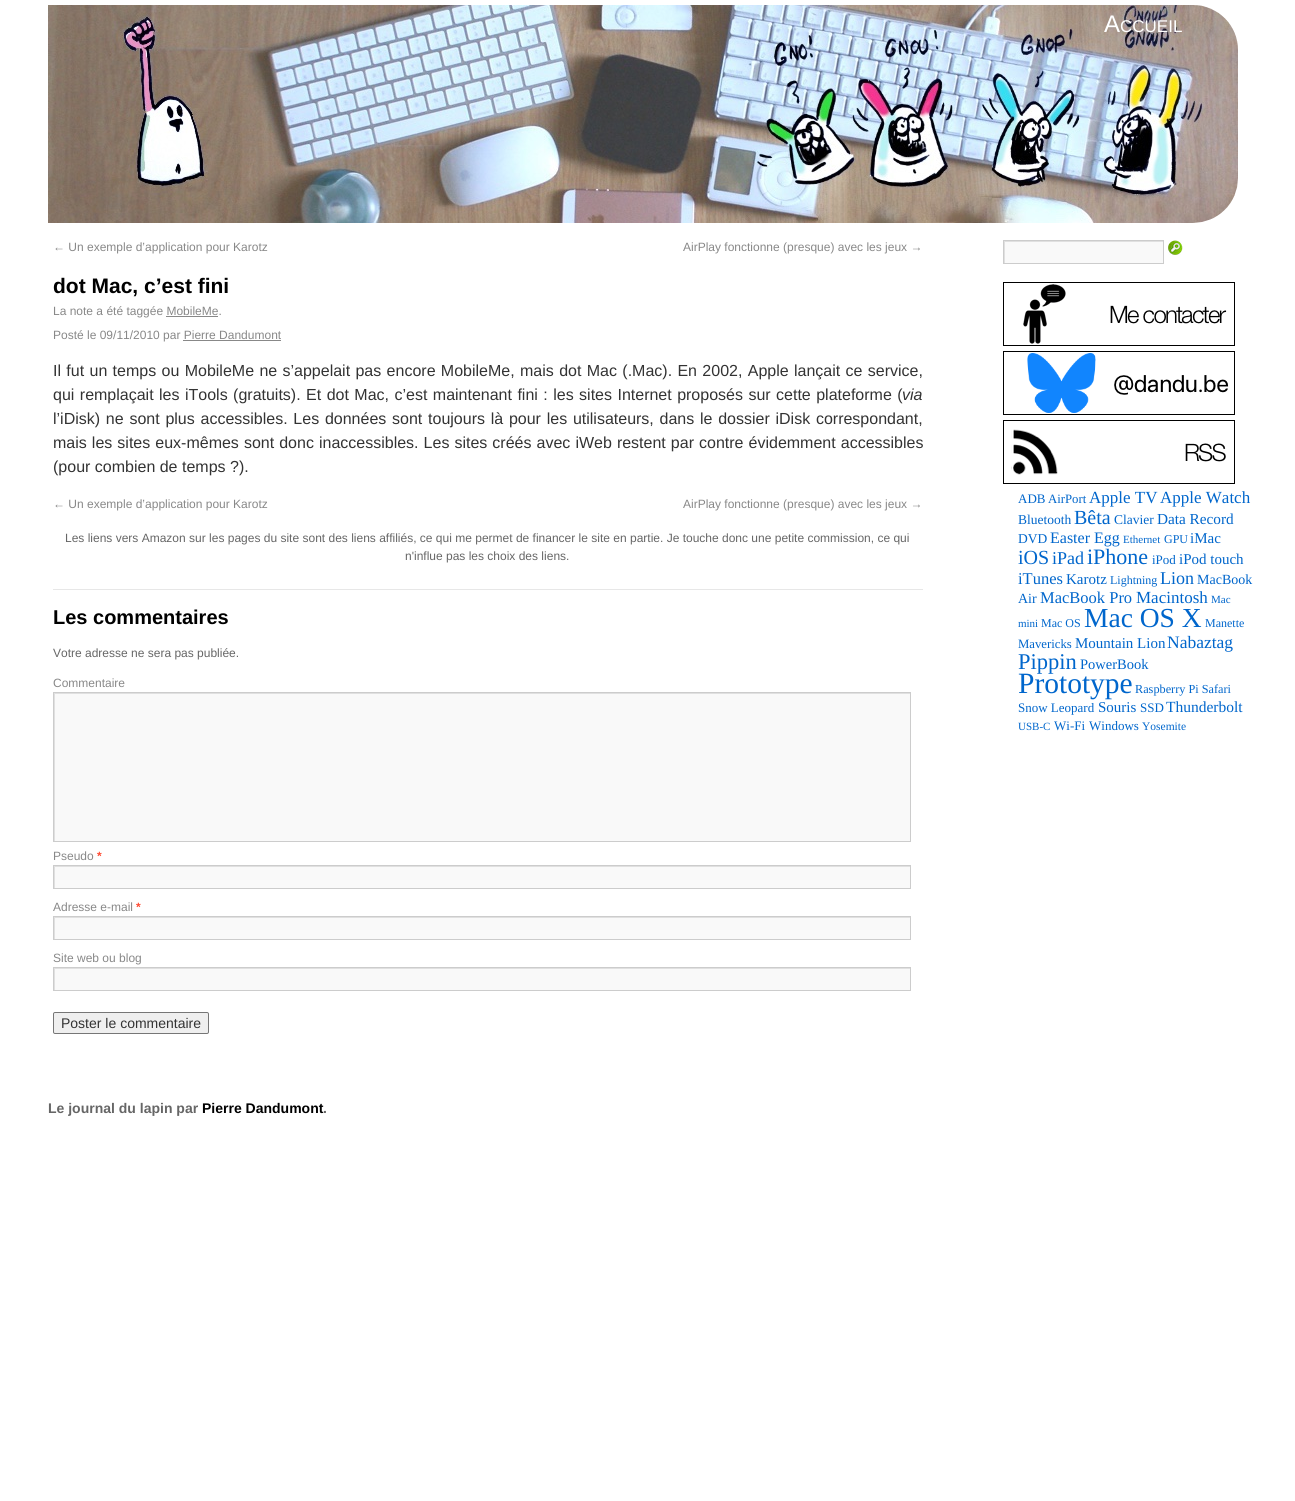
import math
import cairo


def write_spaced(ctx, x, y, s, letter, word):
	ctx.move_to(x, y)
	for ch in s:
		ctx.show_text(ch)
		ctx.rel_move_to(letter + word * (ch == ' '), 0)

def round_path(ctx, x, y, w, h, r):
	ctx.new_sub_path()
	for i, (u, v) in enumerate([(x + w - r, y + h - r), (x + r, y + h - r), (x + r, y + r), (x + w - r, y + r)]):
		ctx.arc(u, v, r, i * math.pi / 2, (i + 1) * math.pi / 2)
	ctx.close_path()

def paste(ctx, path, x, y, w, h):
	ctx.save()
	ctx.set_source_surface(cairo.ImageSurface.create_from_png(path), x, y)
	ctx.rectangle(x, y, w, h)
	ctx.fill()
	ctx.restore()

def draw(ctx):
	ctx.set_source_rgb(1, 1, 1)
	ctx.paint()
	paste(ctx, 'media/1.png', 48, 5, 1190, 218)
	ctx.select_font_face('Liberation Sans')
	ctx.set_font_size(24)
	ctx.set_source_rgb(1, 1, 1)
	ctx.move_to(1104, 32)
	ctx.show_text('A')
	ctx.set_font_size(17)
	ctx.move_to(1120, 32)
	ctx.show_text('CCUEIL')
	ctx.set_font_size(12)
	ctx.set_source_rgb(0.533, 0.533, 0.533)
	ctx.move_to(53, 251)
	ctx.show_text('← Un exemple d’application pour Karotz')
	ctx.move_to(683, 251)
	ctx.show_text('AirPlay fonctionne (presque) avec les jeux →')
	ctx.select_font_face('Liberation Sans', cairo.FONT_SLANT_NORMAL, cairo.FONT_WEIGHT_BOLD)
	ctx.set_font_size(21)
	ctx.set_source_rgb(0, 0, 0)
	ctx.move_to(53, 293)
	ctx.show_text('dot Mac, c’est fini')
	ctx.select_font_face('Liberation Sans')
	ctx.set_font_size(12)
	ctx.set_source_rgb(0.533, 0.533, 0.533)
	ctx.move_to(53, 315)
	ctx.show_text('La note a été taggée MobileMe.')
	ctx.rectangle(166, 316, 52, 1)
	ctx.fill()
	ctx.move_to(53, 339)
	ctx.show_text('Posté le 09/11/2010 par Pierre Dandumont')
	ctx.rectangle(183, 340, 98, 1)
	ctx.fill()
	ctx.set_font_size(16)
	ctx.set_source_rgb(0.2, 0.2, 0.2)
	write_spaced(ctx, 53, 376, 'Il fut un temps ou MobileMe ne s’appelait pas encore MobileMe, mais dot Mac (.Mac). En 2002, Apple lançait ce service,', 0, 0.9)
	write_spaced(ctx, 53, 400, 'qui remplaçait les iTools (gratuits). Et dot Mac, c’est maintenant fini : les sites Internet proposés sur cette plateforme (', 0, 1)
	ctx.select_font_face('Liberation Sans', cairo.FONT_SLANT_ITALIC)
	ctx.move_to(902, 400)
	ctx.show_text('via')
	ctx.select_font_face('Liberation Sans')
	write_spaced(ctx, 53, 424, 'l’iDisk) ne sont plus accessibles. Les données sont toujours là pour les utilisateurs, dans le dossier iDisk correspondant,', 0, 1.3)
	write_spaced(ctx, 53, 448, 'mais les sites eux-mêmes sont donc inaccessibles. Les sites créés avec iWeb restent par contre évidemment accessibles', 0, 0.6)
	ctx.move_to(53, 472)
	ctx.show_text('(pour combien de temps ?).')
	ctx.set_font_size(12)
	ctx.set_source_rgb(0.533, 0.533, 0.533)
	ctx.move_to(53, 508)
	ctx.show_text('← Un exemple d’application pour Karotz')
	ctx.move_to(683, 508)
	ctx.show_text('AirPlay fonctionne (presque) avec les jeux →')
	ctx.set_source_rgb(0.4, 0.4, 0.4)
	ctx.move_to(65, 542)
	ctx.show_text('Les liens vers Amazon sur les pages du site sont des liens affiliés, ce qui me permet de financer le site en partie. Je touche donc une petite commission, ce qui')
	ctx.move_to(405, 560)
	ctx.show_text('n\'influe pas les choix des liens.')
	ctx.set_source_rgb(0.906, 0.906, 0.906)
	ctx.rectangle(53, 589, 870, 1)
	ctx.fill()
	ctx.select_font_face('Liberation Sans', cairo.FONT_SLANT_NORMAL, cairo.FONT_WEIGHT_BOLD)
	ctx.set_font_size(20)
	ctx.set_source_rgb(0, 0, 0)
	ctx.move_to(53, 624)
	ctx.show_text('Les commentaires')
	ctx.select_font_face('Liberation Sans')
	ctx.set_font_size(12)
	ctx.set_source_rgb(0.4, 0.4, 0.4)
	ctx.move_to(53, 657)
	ctx.show_text('Votre adresse ne sera pas publiée.')
	ctx.set_source_rgb(0.533, 0.533, 0.533)
	ctx.move_to(53, 687)
	ctx.show_text('Commentaire')
	ctx.set_source_rgb(0.976, 0.976, 0.976)
	ctx.rectangle(55, 694, 855, 147)
	ctx.fill()
	ctx.save()
	ctx.rectangle(54, 693, 856, 148)
	ctx.clip()
	ctx.set_source_rgb(0.878, 0.878, 0.878)
	ctx.set_fill_rule(cairo.FILL_RULE_EVEN_ODD)
	ctx.new_path()
	ctx.move_to(-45, 594)
	ctx.line_to(1009, 594)
	ctx.line_to(1009, 940)
	ctx.line_to(-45, 940)
	ctx.close_path()
	ctx.move_to(55, 694)
	ctx.line_to(911, 694)
	ctx.line_to(911, 842)
	ctx.line_to(55, 842)
	ctx.close_path()
	ctx.fill()
	ctx.restore()
	ctx.rectangle(53.5, 692.5, 857, 149)
	ctx.set_source_rgb(0.8, 0.8, 0.8)
	ctx.set_line_width(1)
	ctx.stroke()
	ctx.set_source_rgb(0.533, 0.533, 0.533)
	ctx.move_to(53, 860)
	ctx.show_text('Pseudo')
	ctx.select_font_face('Liberation Sans', cairo.FONT_SLANT_NORMAL, cairo.FONT_WEIGHT_BOLD)
	ctx.set_source_rgb(1, 0.294, 0.2)
	ctx.move_to(97, 860)
	ctx.show_text('*')
	ctx.set_source_rgb(0.976, 0.976, 0.976)
	ctx.rectangle(55, 867, 855, 21)
	ctx.fill()
	ctx.save()
	ctx.rectangle(54, 866, 856, 22)
	ctx.clip()
	ctx.set_source_rgb(0.878, 0.878, 0.878)
	ctx.set_fill_rule(cairo.FILL_RULE_EVEN_ODD)
	ctx.new_path()
	ctx.move_to(-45, 767)
	ctx.line_to(1009, 767)
	ctx.line_to(1009, 987)
	ctx.line_to(-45, 987)
	ctx.close_path()
	ctx.move_to(55, 867)
	ctx.line_to(911, 867)
	ctx.line_to(911, 889)
	ctx.line_to(55, 889)
	ctx.close_path()
	ctx.fill()
	ctx.restore()
	ctx.rectangle(53.5, 865.5, 857, 23)
	ctx.set_source_rgb(0.8, 0.8, 0.8)
	ctx.stroke()
	ctx.select_font_face('Liberation Sans')
	ctx.set_source_rgb(0.533, 0.533, 0.533)
	ctx.move_to(53, 911)
	ctx.show_text('Adresse e-mail')
	ctx.select_font_face('Liberation Sans', cairo.FONT_SLANT_NORMAL, cairo.FONT_WEIGHT_BOLD)
	ctx.set_source_rgb(1, 0.294, 0.2)
	ctx.move_to(136, 911)
	ctx.show_text('*')
	ctx.set_source_rgb(0.976, 0.976, 0.976)
	ctx.rectangle(55, 918, 855, 21)
	ctx.fill()
	ctx.save()
	ctx.rectangle(54, 917, 856, 22)
	ctx.clip()
	ctx.set_source_rgb(0.878, 0.878, 0.878)
	ctx.set_fill_rule(cairo.FILL_RULE_EVEN_ODD)
	ctx.new_path()
	ctx.move_to(-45, 818)
	ctx.line_to(1009, 818)
	ctx.line_to(1009, 1038)
	ctx.line_to(-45, 1038)
	ctx.close_path()
	ctx.move_to(55, 918)
	ctx.line_to(911, 918)
	ctx.line_to(911, 940)
	ctx.line_to(55, 940)
	ctx.close_path()
	ctx.fill()
	ctx.restore()
	ctx.rectangle(53.5, 916.5, 857, 23)
	ctx.set_source_rgb(0.8, 0.8, 0.8)
	ctx.stroke()
	ctx.select_font_face('Liberation Sans')
	ctx.set_source_rgb(0.533, 0.533, 0.533)
	ctx.move_to(53, 962)
	ctx.show_text('Site web ou blog')
	ctx.set_source_rgb(0.976, 0.976, 0.976)
	ctx.rectangle(55, 969, 855, 21)
	ctx.fill()
	ctx.save()
	ctx.rectangle(54, 968, 856, 22)
	ctx.clip()
	ctx.set_source_rgb(0.878, 0.878, 0.878)
	ctx.set_fill_rule(cairo.FILL_RULE_EVEN_ODD)
	ctx.new_path()
	ctx.move_to(-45, 869)
	ctx.line_to(1009, 869)
	ctx.line_to(1009, 1089)
	ctx.line_to(-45, 1089)
	ctx.close_path()
	ctx.move_to(55, 969)
	ctx.line_to(911, 969)
	ctx.line_to(911, 991)
	ctx.line_to(55, 991)
	ctx.close_path()
	ctx.fill()
	ctx.restore()
	ctx.rectangle(53.5, 967.5, 857, 23)
	ctx.set_source_rgb(0.8, 0.8, 0.8)
	ctx.stroke()
	ctx.set_source_rgb(0.937, 0.937, 0.937)
	round_path(ctx, 53.5, 1012.5, 155, 21, 1.5)
	ctx.fill_preserve()
	ctx.set_source_rgb(0.463, 0.463, 0.463)
	ctx.stroke()
	ctx.set_font_size(14)
	ctx.set_source_rgb(0.2, 0.2, 0.2)
	ctx.move_to(61, 1028)
	ctx.show_text('Poster le commentaire')
	ctx.set_source_rgb(0.976, 0.976, 0.976)
	ctx.rectangle(1005, 242, 158, 21)
	ctx.fill()
	ctx.save()
	ctx.rectangle(1004, 241, 159, 22)
	ctx.clip()
	ctx.set_source_rgb(0.878, 0.878, 0.878)
	ctx.set_fill_rule(cairo.FILL_RULE_EVEN_ODD)
	ctx.new_path()
	ctx.move_to(905, 142)
	ctx.line_to(1262, 142)
	ctx.line_to(1262, 362)
	ctx.line_to(905, 362)
	ctx.close_path()
	ctx.move_to(1005, 242)
	ctx.line_to(1164, 242)
	ctx.line_to(1164, 264)
	ctx.line_to(1005, 264)
	ctx.close_path()
	ctx.fill()
	ctx.restore()
	ctx.rectangle(1003.5, 240.5, 160, 23)
	ctx.set_source_rgb(0.8, 0.8, 0.8)
	ctx.stroke()
	paste(ctx, 'media/2.png', 1168, 240, 15, 15)
	paste(ctx, 'media/3.png', 1003, 282, 232, 64)
	paste(ctx, 'media/4.png', 1003, 351, 232, 64)
	paste(ctx, 'media/5.png', 1003, 420, 232, 64)
	ctx.select_font_face('Liberation Serif')
	ctx.set_font_size(13)
	ctx.set_source_rgb(0, 0.4, 0.8)
	ctx.move_to(1018, 503)
	ctx.show_text('ADB')
	ctx.set_font_size(12.75)
	ctx.move_to(1048, 503)
	ctx.show_text('AirPort')
	ctx.set_font_size(17)
	ctx.move_to(1089, 503)
	ctx.show_text('Apple TV')
	ctx.move_to(1160, 503)
	ctx.show_text('Apple Watch')
	ctx.set_font_size(13.5)
	ctx.move_to(1018, 524)
	ctx.show_text('Bluetooth')
	ctx.set_font_size(20)
	ctx.move_to(1074, 524)
	ctx.show_text('Bêta')
	ctx.set_font_size(13.5)
	ctx.move_to(1114, 524)
	ctx.show_text('Clavier')
	ctx.set_font_size(15.25)
	ctx.move_to(1157, 524)
	ctx.show_text('Data Record')
	ctx.set_font_size(13.5)
	ctx.move_to(1018, 543)
	ctx.show_text('DVD')
	ctx.set_font_size(16)
	ctx.move_to(1050, 543)
	ctx.show_text('Easter Egg')
	ctx.set_font_size(11)
	ctx.move_to(1123, 543)
	ctx.show_text('Ethernet')
	ctx.set_font_size(12)
	ctx.move_to(1164, 543)
	ctx.show_text('GPU')
	ctx.set_font_size(15)
	ctx.move_to(1190, 543)
	ctx.show_text('iMac')
	ctx.set_font_size(20)
	ctx.move_to(1018, 564)
	ctx.show_text('iOS')
	ctx.set_font_size(18)
	ctx.move_to(1052, 564)
	ctx.show_text('iPad')
	ctx.set_font_size(22)
	ctx.move_to(1087, 564)
	ctx.show_text('iPhone')
	ctx.set_font_size(13)
	ctx.move_to(1152, 564)
	ctx.show_text('iPod')
	ctx.set_font_size(15)
	ctx.move_to(1179, 564)
	ctx.show_text('iPod touch')
	ctx.set_font_size(16.5)
	ctx.move_to(1018, 584)
	ctx.show_text('iTunes')
	ctx.set_font_size(15)
	ctx.move_to(1066, 584)
	ctx.show_text('Karotz')
	ctx.set_font_size(12)
	ctx.move_to(1110, 584)
	ctx.show_text('Lightning')
	ctx.set_font_size(18)
	ctx.move_to(1160, 584)
	ctx.show_text('Lion')
	ctx.set_font_size(14)
	ctx.move_to(1197, 584)
	ctx.show_text('MacBook')
	ctx.move_to(1018, 603)
	ctx.show_text('Air')
	ctx.set_font_size(16.5)
	ctx.move_to(1040, 603)
	ctx.show_text('MacBook Pro')
	ctx.set_font_size(17)
	ctx.move_to(1136, 603)
	ctx.show_text('Macintosh')
	ctx.set_font_size(11)
	ctx.move_to(1211, 603)
	ctx.show_text('Mac')
	ctx.move_to(1018, 627)
	ctx.show_text('mini')
	ctx.set_font_size(12)
	ctx.move_to(1041, 627)
	ctx.show_text('Mac OS')
	ctx.set_font_size(27.5)
	ctx.move_to(1084, 627)
	ctx.show_text('Mac OS X')
	ctx.set_font_size(12)
	ctx.move_to(1205, 627)
	ctx.show_text('Manette')
	ctx.set_font_size(12.75)
	ctx.move_to(1018, 648)
	ctx.show_text('Mavericks')
	ctx.set_font_size(15)
	ctx.move_to(1075, 648)
	ctx.show_text('Mountain Lion')
	ctx.set_font_size(17.5)
	ctx.move_to(1167, 648)
	ctx.show_text('Nabaztag')
	ctx.set_font_size(22.5)
	ctx.move_to(1018, 669)
	ctx.show_text('Pippin')
	ctx.set_font_size(14.5)
	ctx.move_to(1080, 669)
	ctx.show_text('PowerBook')
	ctx.set_font_size(29.5)
	ctx.move_to(1018, 693)
	ctx.show_text('Prototype')
	ctx.set_font_size(12.25)
	ctx.move_to(1135, 693)
	ctx.show_text('Raspberry Pi Safari')
	ctx.set_font_size(13)
	ctx.move_to(1018, 712)
	ctx.show_text('Snow Leopard')
	ctx.set_font_size(15)
	ctx.move_to(1098, 712)
	ctx.show_text('Souris')
	ctx.set_font_size(13)
	ctx.move_to(1140, 712)
	ctx.show_text('SSD')
	ctx.set_font_size(15.5)
	ctx.move_to(1166, 712)
	ctx.show_text('Thunderbolt')
	ctx.set_font_size(11)
	ctx.move_to(1018, 730)
	ctx.show_text('USB-C')
	ctx.set_font_size(13)
	ctx.move_to(1054, 730)
	ctx.show_text('Wi-Fi')
	ctx.move_to(1089, 730)
	ctx.show_text('Windows')
	ctx.set_font_size(11.5)
	ctx.move_to(1142, 730)
	ctx.show_text('Yosemite')
	ctx.select_font_face('Liberation Sans', cairo.FONT_SLANT_NORMAL, cairo.FONT_WEIGHT_BOLD)
	ctx.set_font_size(14)
	ctx.set_source_rgb(0.4, 0.4, 0.4)
	ctx.move_to(48, 1113)
	ctx.show_text('Le journal du lapin par')
	ctx.set_source_rgb(0, 0, 0)
	ctx.move_to(202, 1113)
	ctx.show_text('Pierre Dandumont')
	ctx.set_source_rgb(0.4, 0.4, 0.4)
	ctx.move_to(323, 1113)
	ctx.show_text('.')


surface = cairo.ImageSurface(cairo.FORMAT_RGB24, 1295, 1501)
ctx = cairo.Context(surface)
options = cairo.FontOptions()
options.set_hint_metrics(cairo.HINT_METRICS_OFF)
options.set_hint_style(cairo.HINT_STYLE_NONE)
ctx.set_font_options(options)
ctx.set_miter_limit(4)
draw(ctx)
surface.write_to_png('image.png')
